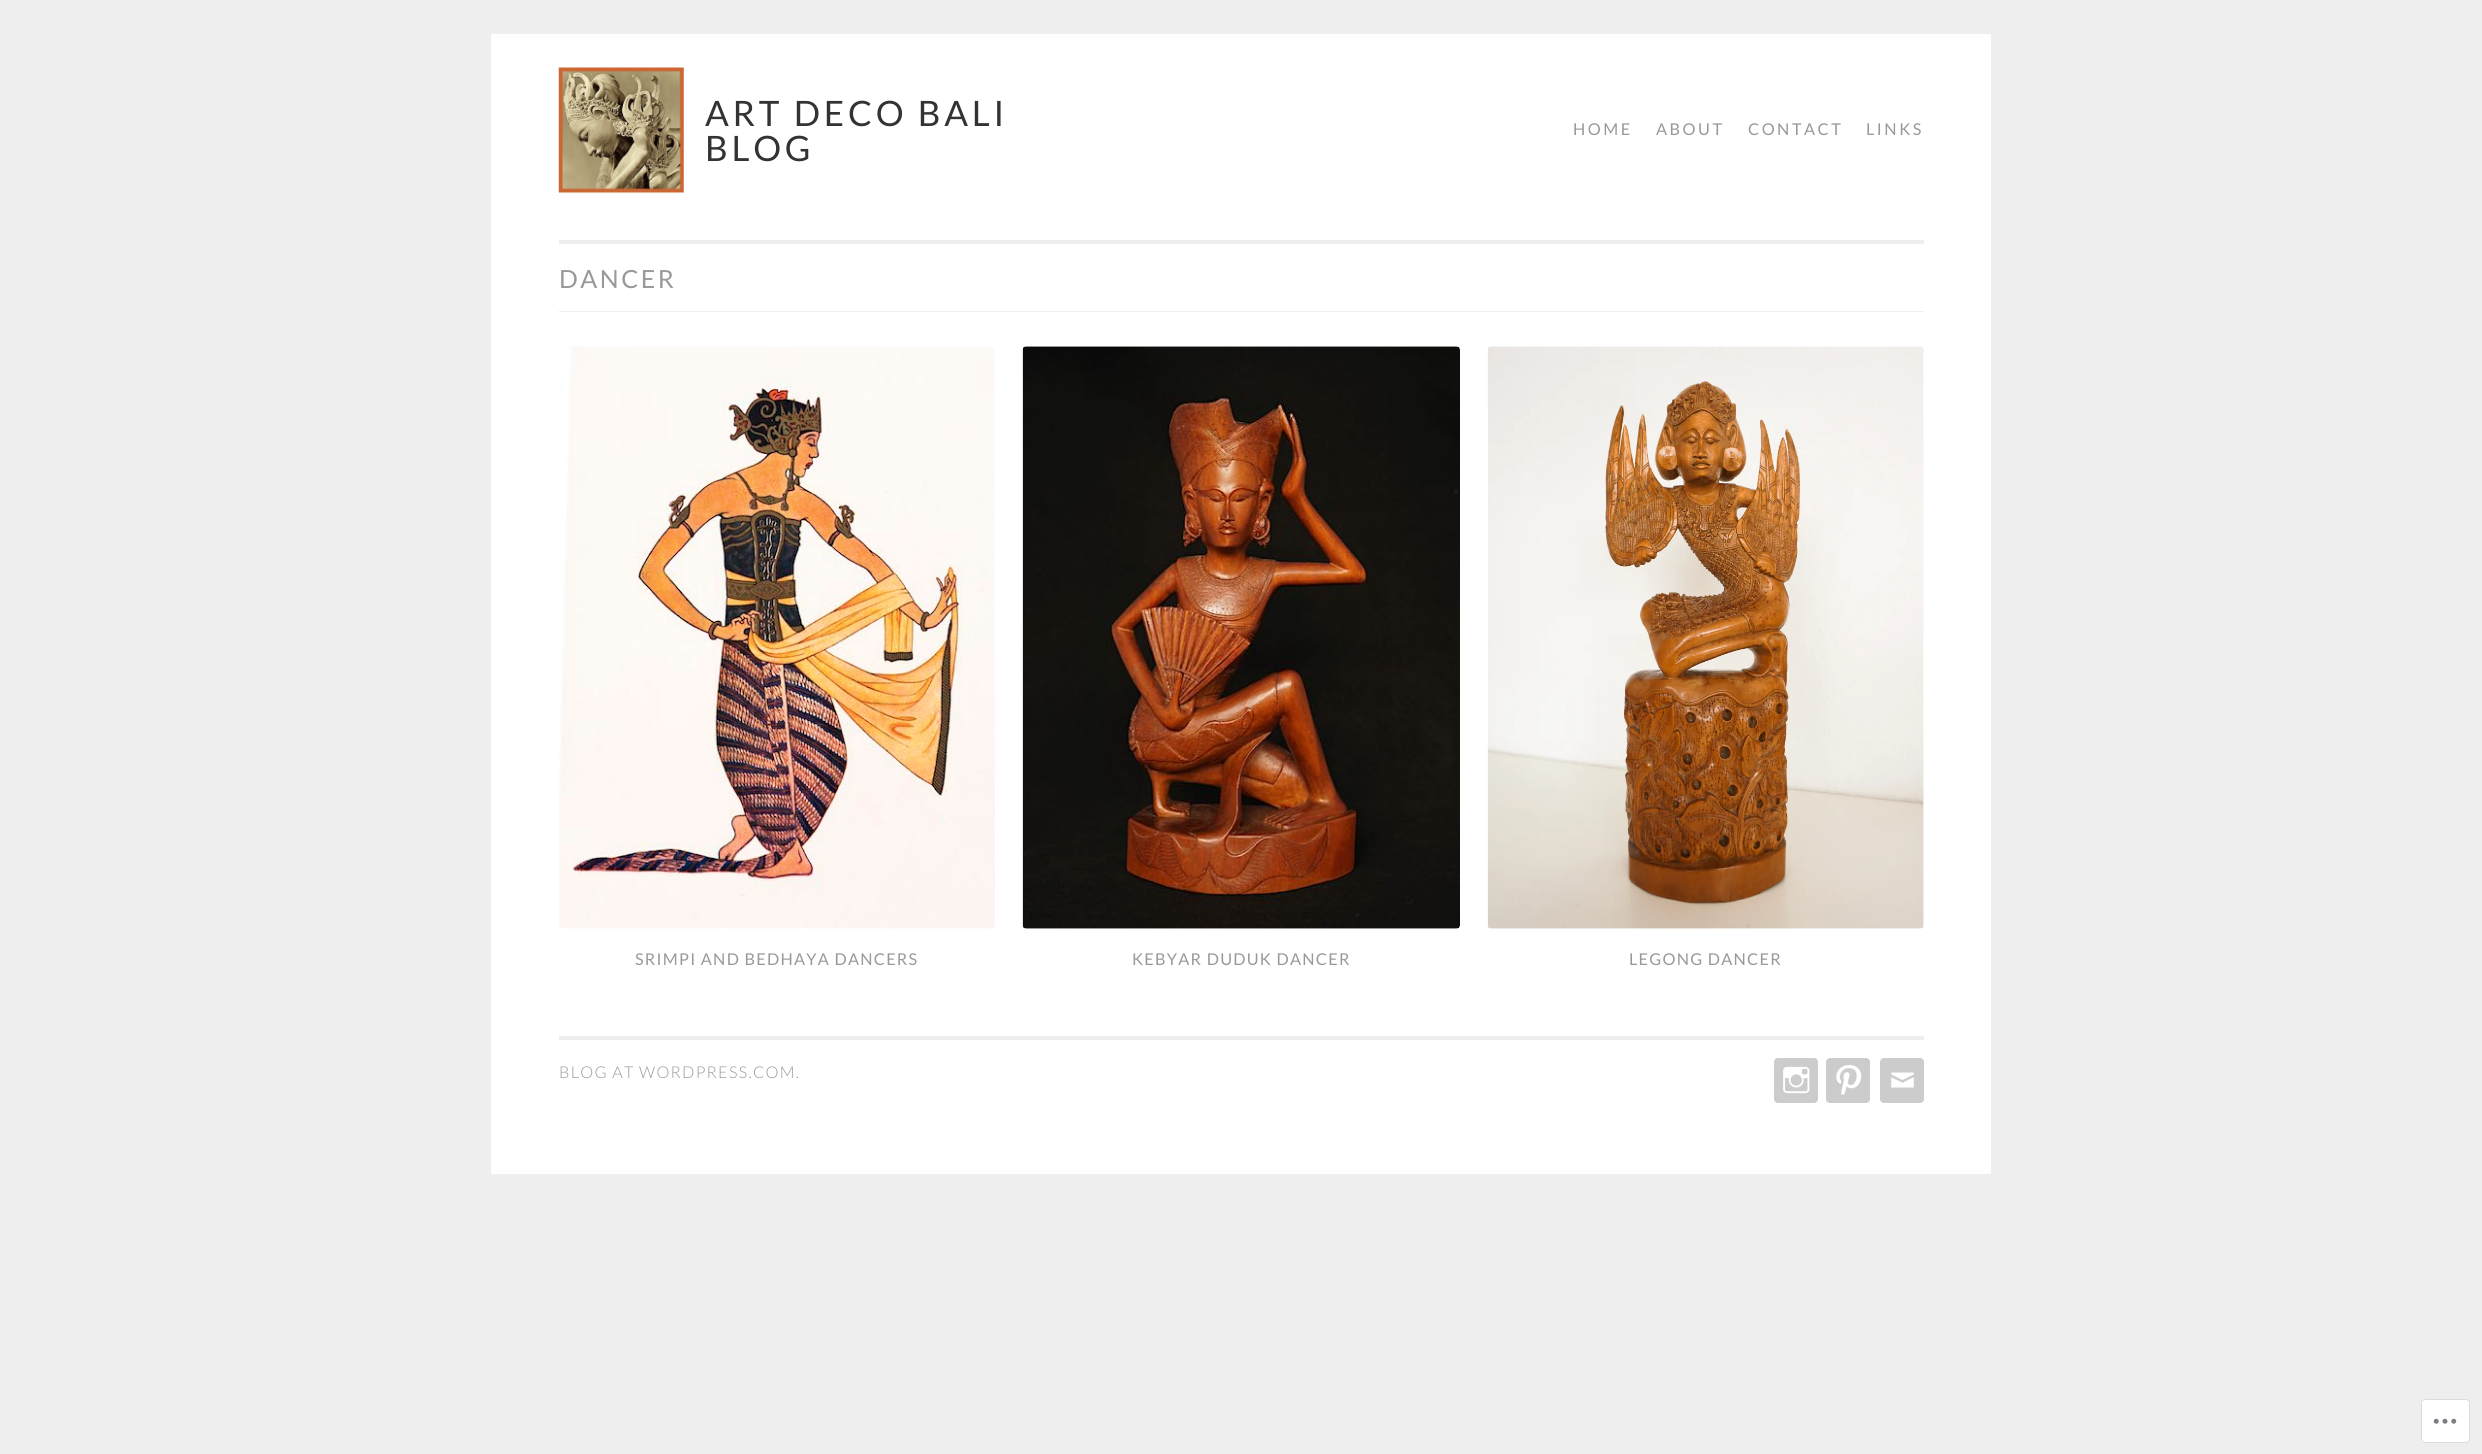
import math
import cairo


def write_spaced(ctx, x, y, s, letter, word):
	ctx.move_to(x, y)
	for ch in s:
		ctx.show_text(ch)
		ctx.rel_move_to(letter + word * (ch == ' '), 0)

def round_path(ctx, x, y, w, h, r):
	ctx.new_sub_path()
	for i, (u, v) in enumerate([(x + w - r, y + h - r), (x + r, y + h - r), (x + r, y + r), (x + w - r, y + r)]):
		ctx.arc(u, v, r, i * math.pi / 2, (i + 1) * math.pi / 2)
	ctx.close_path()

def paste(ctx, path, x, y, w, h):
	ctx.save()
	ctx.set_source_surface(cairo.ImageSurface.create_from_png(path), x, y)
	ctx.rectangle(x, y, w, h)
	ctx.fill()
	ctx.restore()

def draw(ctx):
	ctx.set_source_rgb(0.933, 0.933, 0.933)
	ctx.paint()
	ctx.set_source_rgb(1, 1, 1)
	ctx.rectangle(491, 34, 1500, 1140)
	ctx.fill()
	ctx.set_source_rgb(0.933, 0.933, 0.933)
	ctx.rectangle(559, 240, 1365, 4)
	ctx.fill()
	paste(ctx, 'media/1.png', 558, 67, 126, 126)
	ctx.select_font_face('Lato')
	ctx.set_font_size(35)
	ctx.set_source_rgb(0.2, 0.2, 0.2)
	write_spaced(ctx, 705, 126, 'ART DECO BALI', 3.75, 0)
	write_spaced(ctx, 705, 161, 'BLOG', 3.75, 0)
	ctx.set_font_size(16.25)
	ctx.set_source_rgb(0.6, 0.6, 0.6)
	for x, y, s in [
		(1573, 135, 'HOME'),
		(1656, 135, 'ABOUT'),
		(1748, 135, 'CONTACT'),
		(1866, 135, 'LINKS'),
	]:
		write_spaced(ctx, x, y, s, 2.5, 0)
	ctx.set_source_rgb(0.933, 0.933, 0.933)
	ctx.rectangle(559, 311, 1365, 1)
	ctx.fill()
	ctx.set_font_size(25)
	ctx.set_source_rgb(0.6, 0.6, 0.6)
	write_spaced(ctx, 559, 288, 'DANCER', 2.5, 0)
	paste(ctx, 'media/2.png', 559, 346, 436, 583)
	ctx.set_font_size(16.25)
	write_spaced(ctx, 635, 965, 'SRIMPI AND BEDHAYA DANCERS', 1.25, 0)
	paste(ctx, 'media/3.png', 1022, 346, 438, 583)
	write_spaced(ctx, 1132, 965, 'KEBYAR DUDUK DANCER', 1.25, 0)
	paste(ctx, 'media/4.png', 1487, 346, 437, 583)
	write_spaced(ctx, 1629, 965, 'LEGONG DANCER', 1.25, 0)
	ctx.set_source_rgb(0.933, 0.933, 0.933)
	ctx.rectangle(559, 1036, 1365, 4)
	ctx.fill()
	ctx.select_font_face('Lato Light')
	ctx.set_source_rgb(0.6, 0.6, 0.6)
	write_spaced(ctx, 559, 1078, 'BLOG AT WORDPRESS.COM.', 1.25, 0)
	ctx.set_source_rgb(0.8, 0.8, 0.8)
	round_path(ctx, 1774, 1058, 44, 45, 4)
	ctx.fill()
	paste(ctx, 'media/5.png', 1783, 1066, 27, 28)
	round_path(ctx, 1826, 1058, 44, 45, 4)
	ctx.fill()
	paste(ctx, 'media/6.png', 1836, 1065, 26, 30)
	round_path(ctx, 1880, 1058, 44, 45, 4)
	ctx.fill()
	paste(ctx, 'media/7.png', 1891, 1072, 23, 16)
	ctx.set_source_rgb(1, 1, 1)
	round_path(ctx, 2421.5, 1399.5, 48, 43, 3.5)
	ctx.fill_preserve()
	ctx.set_source_rgb(0.863, 0.863, 0.871)
	ctx.set_line_width(1)
	ctx.stroke()
	paste(ctx, 'media/8.png', 2433, 1418, 24, 6)


surface = cairo.ImageSurface(cairo.FORMAT_RGB24, 2482, 1454)
ctx = cairo.Context(surface)
options = cairo.FontOptions()
options.set_hint_metrics(cairo.HINT_METRICS_OFF)
options.set_hint_style(cairo.HINT_STYLE_NONE)
ctx.set_font_options(options)
ctx.set_miter_limit(4)
draw(ctx)
surface.write_to_png('image.png')
